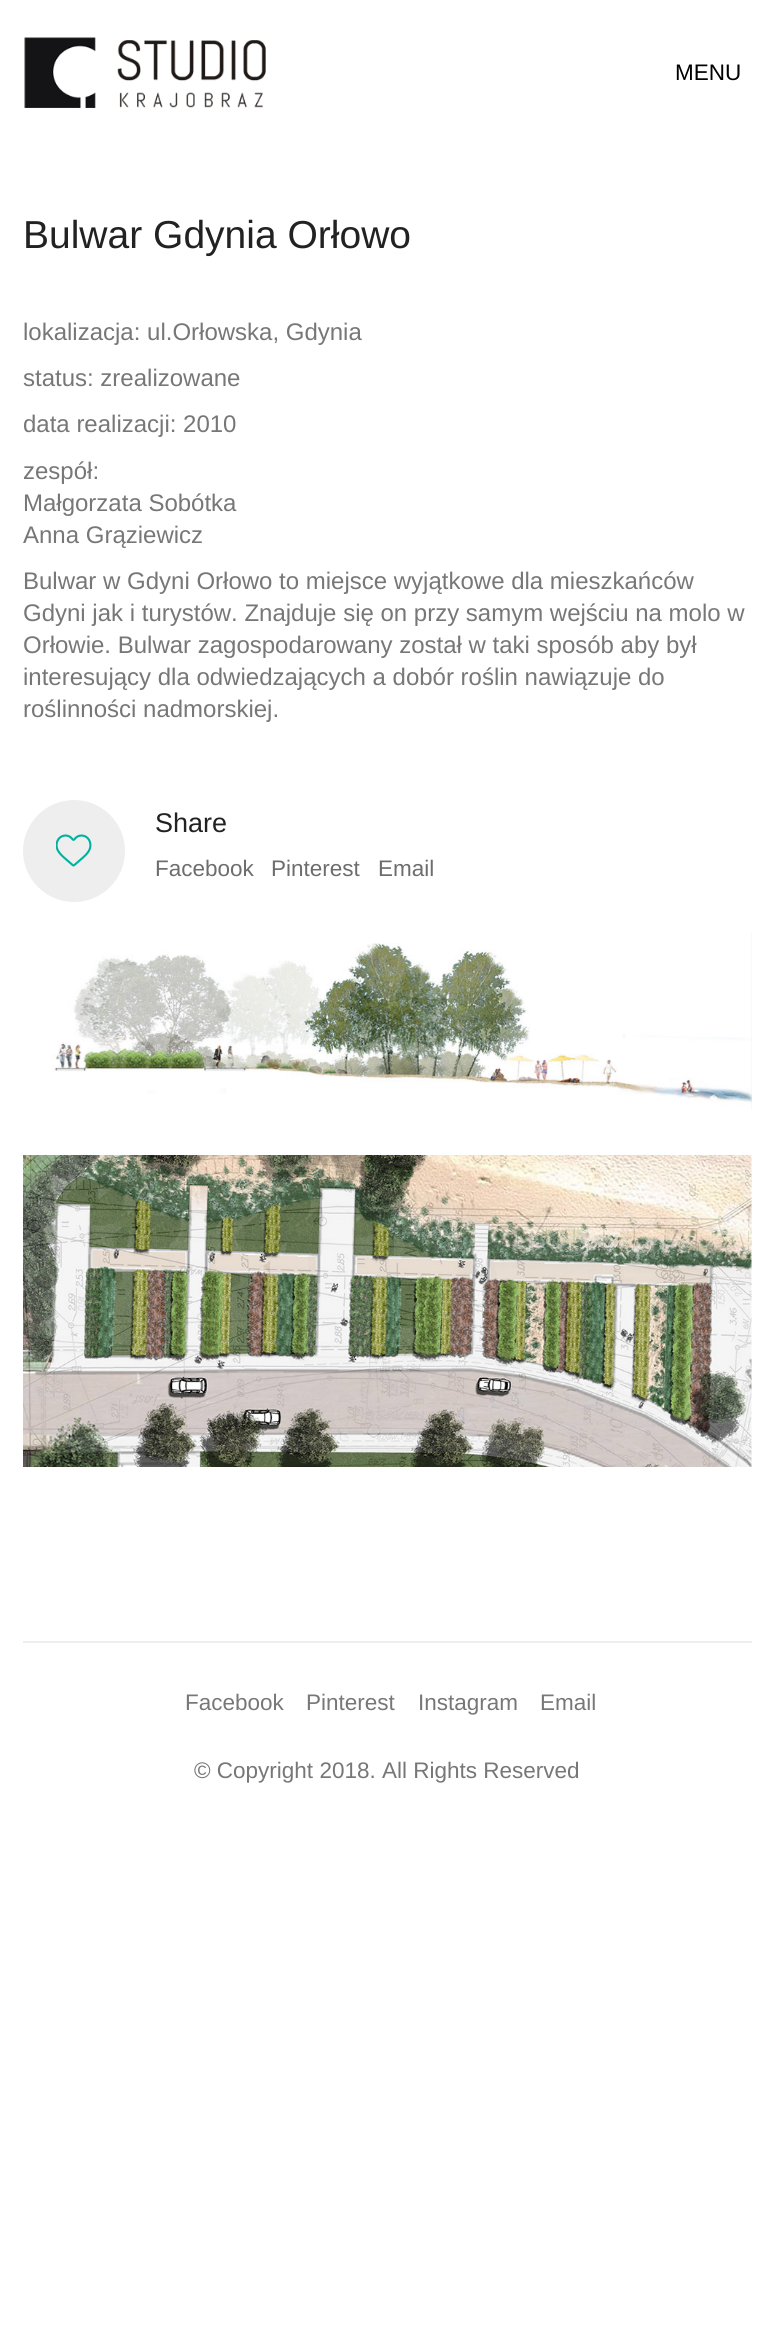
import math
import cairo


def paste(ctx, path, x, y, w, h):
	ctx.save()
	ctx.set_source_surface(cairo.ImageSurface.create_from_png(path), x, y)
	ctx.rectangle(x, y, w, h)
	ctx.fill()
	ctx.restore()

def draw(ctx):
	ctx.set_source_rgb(1, 1, 1)
	ctx.paint()
	paste(ctx, 'media/1.png', 24, 37, 242, 71)
	ctx.select_font_face('Liberation Sans')
	ctx.set_font_size(22.5)
	ctx.set_source_rgb(0, 0, 0)
	ctx.move_to(675, 80)
	ctx.show_text('MENU')
	ctx.set_font_size(39)
	ctx.set_source_rgb(0.133, 0.133, 0.133)
	ctx.move_to(23, 248)
	ctx.show_text('Bulwar Gdynia Orłowo')
	ctx.set_font_size(24)
	ctx.set_source_rgb(0.467, 0.467, 0.467)
	for x, y, s in [
		(23, 340, 'lokalizacja: ul.Orłowska, Gdynia'),
		(23, 386, 'status: zrealizowane'),
		(23, 432, 'data realizacji: 2010'),
		(23, 479, 'zespół:'),
		(23, 511, 'Małgorzata Sobótka'),
		(23, 543, 'Anna Grąziewicz'),
		(23, 589, 'Bulwar w Gdyni Orłowo to miejsce wyjątkowe dla mieszkańców'),
		(23, 621, 'Gdyni jak i turystów. Znajduje się on przy samym wejściu na molo w'),
		(23, 653, 'Orłowie. Bulwar zagospodarowany został w taki sposób aby był'),
		(23, 685, 'interesujący dla odwiedzających a dobór roślin nawiązuje do'),
		(23, 717, 'roślinności nadmorskiej.'),
	]:
		ctx.move_to(x, y)
		ctx.show_text(s)
	ctx.set_source_rgb(0.933, 0.933, 0.933)
	ctx.new_path()
	ctx.arc(74, 851, 51, 0, 2 * math.pi)
	ctx.fill()
	paste(ctx, 'media/2.png', 56, 834, 36, 33)
	ctx.set_font_size(27)
	ctx.set_source_rgb(0.133, 0.133, 0.133)
	ctx.move_to(155, 832)
	ctx.show_text('Share')
	ctx.set_font_size(22.5)
	ctx.set_source_rgb(0.427, 0.427, 0.427)
	for x, y, s in [
		(155, 876, 'Facebook'),
		(271, 876, 'Pinterest'),
		(378, 876, 'Email'),
	]:
		ctx.move_to(x, y)
		ctx.show_text(s)
	ctx.set_source_rgb(0.933, 0.933, 0.933)
	ctx.rectangle(751, 932, 1, 178)
	ctx.fill()
	paste(ctx, 'media/3.png', 23, 932, 729, 178)
	paste(ctx, 'media/4.png', 23, 1155, 729, 312)
	ctx.rectangle(23, 1641, 729, 2)
	ctx.fill()
	ctx.set_source_rgb(0.467, 0.467, 0.467)
	for x, y, s in [
		(185, 1710, 'Facebook'),
		(306, 1710, 'Pinterest'),
		(418, 1710, 'Instagram'),
		(540, 1710, 'Email'),
		(194, 1778, '© Copyright 2018. All Rights Reserved'),
	]:
		ctx.move_to(x, y)
		ctx.show_text(s)


surface = cairo.ImageSurface(cairo.FORMAT_RGB24, 773, 2345)
ctx = cairo.Context(surface)
options = cairo.FontOptions()
options.set_hint_metrics(cairo.HINT_METRICS_OFF)
options.set_hint_style(cairo.HINT_STYLE_NONE)
ctx.set_font_options(options)
ctx.set_miter_limit(4)
draw(ctx)
surface.write_to_png('image.png')
